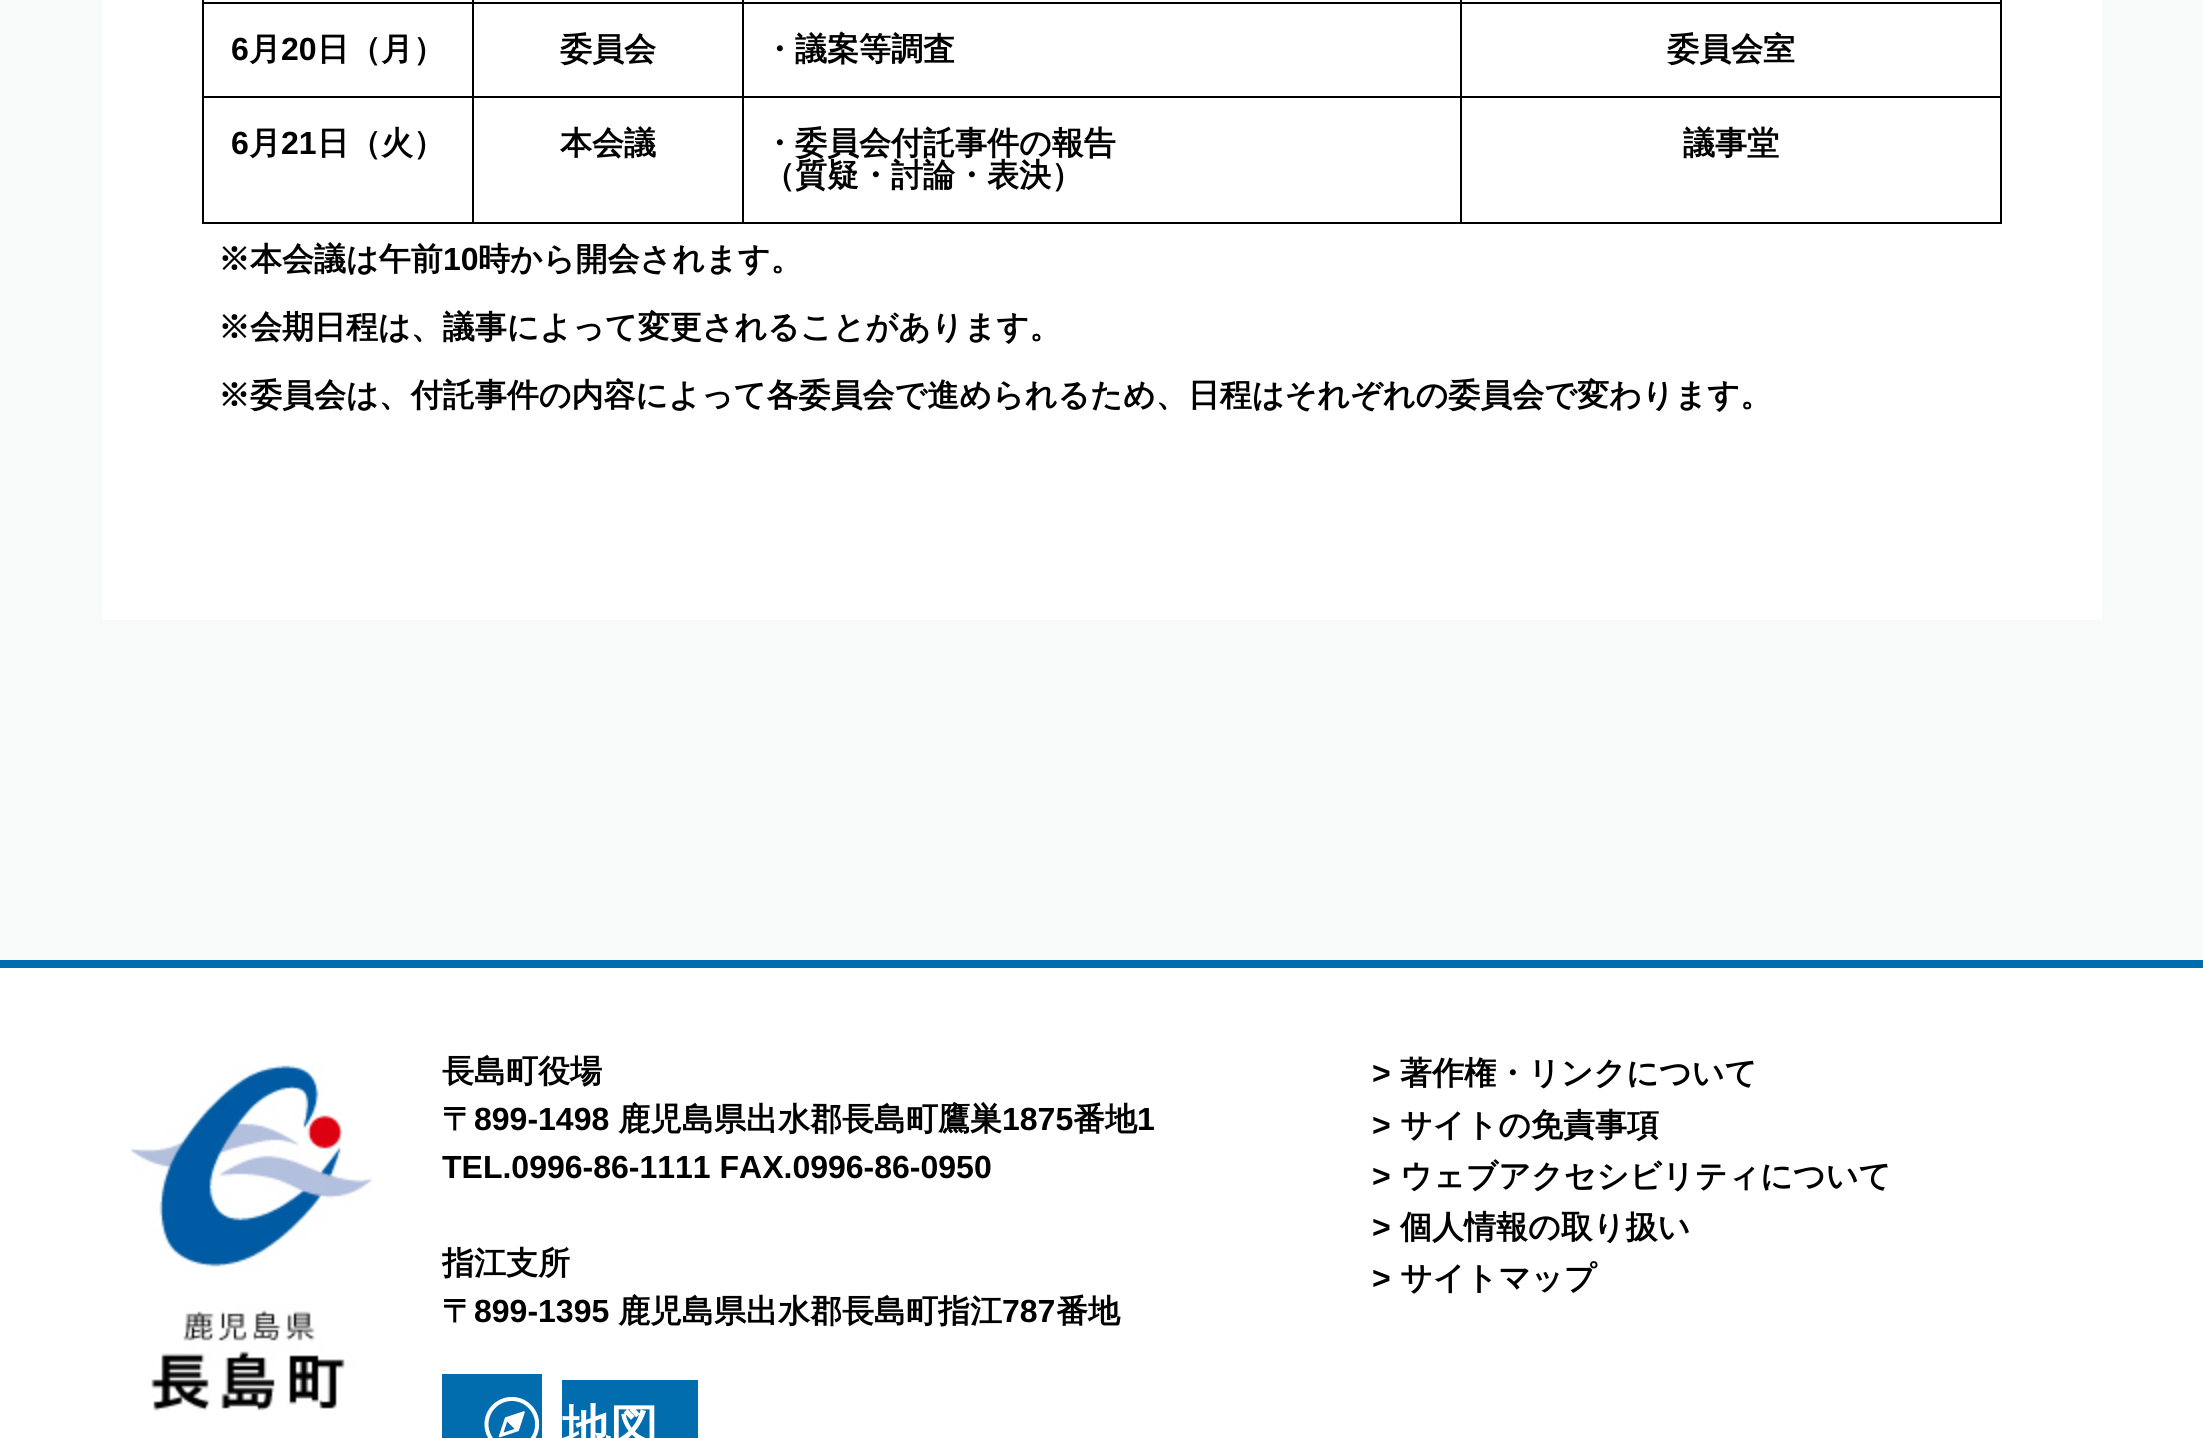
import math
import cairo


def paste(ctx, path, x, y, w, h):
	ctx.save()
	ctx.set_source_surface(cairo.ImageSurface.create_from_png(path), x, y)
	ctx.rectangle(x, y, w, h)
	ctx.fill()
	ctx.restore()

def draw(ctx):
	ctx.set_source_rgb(1, 1, 1)
	ctx.paint()
	ctx.set_source_rgb(0.969, 0.976, 0.976)
	ctx.rectangle(0, 0, 2203, 960)
	ctx.fill()
	ctx.set_source_rgb(0.004, 0.427, 0.682)
	ctx.rectangle(0, 960, 2203, 8)
	ctx.fill()
	ctx.set_source_rgb(1, 1, 1)
	ctx.rectangle(102, 0, 2000, 620)
	ctx.fill()
	ctx.set_source_rgb(0, 0, 0)
	ctx.rectangle(2000, 0, 2, 224)
	ctx.rectangle(202, 222, 1800, 2)
	ctx.rectangle(202, 0, 2, 224)
	ctx.rectangle(1460, 2, 542, 2)
	ctx.rectangle(1460, 96, 542, 2)
	ctx.rectangle(1460, 96, 2, 128)
	ctx.rectangle(742, 96, 720, 2)
	ctx.rectangle(1460, 2, 2, 96)
	ctx.rectangle(742, 2, 720, 2)
	ctx.rectangle(742, 96, 2, 128)
	ctx.rectangle(472, 96, 272, 2)
	ctx.rectangle(742, 2, 2, 96)
	ctx.rectangle(472, 2, 272, 2)
	ctx.rectangle(472, 96, 2, 128)
	ctx.rectangle(202, 96, 272, 2)
	ctx.rectangle(472, 2, 2, 96)
	ctx.rectangle(202, 2, 272, 2)
	ctx.rectangle(472, 0, 2, 4)
	ctx.rectangle(742, 0, 2, 4)
	ctx.rectangle(1460, 0, 2, 4)
	ctx.fill()
	ctx.select_font_face('Liberation Sans', cairo.FONT_SLANT_NORMAL, cairo.FONT_WEIGHT_BOLD)
	ctx.set_font_size(32)
	ctx.move_to(231, 60)
	ctx.show_text('6')
	ctx.select_font_face('WenQuanYi Zen Hei', cairo.FONT_SLANT_NORMAL, cairo.FONT_WEIGHT_BOLD)
	ctx.move_to(249, 60)
	ctx.show_text('月')
	ctx.select_font_face('Liberation Sans', cairo.FONT_SLANT_NORMAL, cairo.FONT_WEIGHT_BOLD)
	ctx.move_to(281, 60)
	ctx.show_text('20')
	ctx.select_font_face('WenQuanYi Zen Hei', cairo.FONT_SLANT_NORMAL, cairo.FONT_WEIGHT_BOLD)
	for x, y, s in [
		(317, 60, '日（月）'),
		(560, 60, '委員会'),
		(763, 60, '・議案等調査'),
		(1667, 60, '委員会室'),
	]:
		ctx.move_to(x, y)
		ctx.show_text(s)
	ctx.select_font_face('Liberation Sans', cairo.FONT_SLANT_NORMAL, cairo.FONT_WEIGHT_BOLD)
	ctx.move_to(231, 154)
	ctx.show_text('6')
	ctx.select_font_face('WenQuanYi Zen Hei', cairo.FONT_SLANT_NORMAL, cairo.FONT_WEIGHT_BOLD)
	ctx.move_to(249, 154)
	ctx.show_text('月')
	ctx.select_font_face('Liberation Sans', cairo.FONT_SLANT_NORMAL, cairo.FONT_WEIGHT_BOLD)
	ctx.move_to(281, 154)
	ctx.show_text('21')
	ctx.select_font_face('WenQuanYi Zen Hei', cairo.FONT_SLANT_NORMAL, cairo.FONT_WEIGHT_BOLD)
	for x, y, s in [
		(317, 154, '日（火）'),
		(560, 154, '本会議'),
		(763, 154, '・委員会付託事件の報告'),
		(763, 186, '（質疑・討論・表決）'),
		(1683, 154, '議事堂'),
		(218, 270, '※本会議は午前'),
	]:
		ctx.move_to(x, y)
		ctx.show_text(s)
	ctx.select_font_face('Liberation Sans', cairo.FONT_SLANT_NORMAL, cairo.FONT_WEIGHT_BOLD)
	ctx.move_to(443, 270)
	ctx.show_text('10')
	ctx.select_font_face('WenQuanYi Zen Hei', cairo.FONT_SLANT_NORMAL, cairo.FONT_WEIGHT_BOLD)
	for x, y, s in [
		(478, 270, '時から開会されます。'),
		(218, 338, '※会期日程は、議事によって変更されることがあります。'),
		(218, 406, '※委員会は、付託事件の内容によって各委員会で進められるため、日程はそれぞれの委員会で変わります。'),
	]:
		ctx.move_to(x, y)
		ctx.show_text(s)
	paste(ctx, 'media/1.png', 130, 1065, 243, 346)
	ctx.move_to(442, 1082)
	ctx.show_text('長島町役場')
	ctx.move_to(442, 1130)
	ctx.show_text('〒')
	ctx.select_font_face('Liberation Sans', cairo.FONT_SLANT_NORMAL, cairo.FONT_WEIGHT_BOLD)
	ctx.move_to(474, 1130)
	ctx.show_text('899-1498')
	ctx.select_font_face('WenQuanYi Zen Hei', cairo.FONT_SLANT_NORMAL, cairo.FONT_WEIGHT_BOLD)
	ctx.move_to(618, 1130)
	ctx.show_text('鹿児島県出水郡長島町鷹巣')
	ctx.select_font_face('Liberation Sans', cairo.FONT_SLANT_NORMAL, cairo.FONT_WEIGHT_BOLD)
	ctx.move_to(1002, 1130)
	ctx.show_text('1875')
	ctx.select_font_face('WenQuanYi Zen Hei', cairo.FONT_SLANT_NORMAL, cairo.FONT_WEIGHT_BOLD)
	ctx.move_to(1073, 1130)
	ctx.show_text('番地')
	ctx.select_font_face('Liberation Sans', cairo.FONT_SLANT_NORMAL, cairo.FONT_WEIGHT_BOLD)
	ctx.move_to(1137, 1130)
	ctx.show_text('1')
	ctx.move_to(442, 1178)
	ctx.show_text('TEL.0996-86-1111 FAX.0996-86-0950')
	ctx.select_font_face('WenQuanYi Zen Hei', cairo.FONT_SLANT_NORMAL, cairo.FONT_WEIGHT_BOLD)
	ctx.move_to(442, 1274)
	ctx.show_text('指江支所')
	ctx.move_to(442, 1322)
	ctx.show_text('〒')
	ctx.select_font_face('Liberation Sans', cairo.FONT_SLANT_NORMAL, cairo.FONT_WEIGHT_BOLD)
	ctx.move_to(474, 1322)
	ctx.show_text('899-1395')
	ctx.select_font_face('WenQuanYi Zen Hei', cairo.FONT_SLANT_NORMAL, cairo.FONT_WEIGHT_BOLD)
	ctx.move_to(618, 1322)
	ctx.show_text('鹿児島県出水郡長島町指江')
	ctx.select_font_face('Liberation Sans', cairo.FONT_SLANT_NORMAL, cairo.FONT_WEIGHT_BOLD)
	ctx.move_to(1002, 1322)
	ctx.show_text('787')
	ctx.select_font_face('WenQuanYi Zen Hei', cairo.FONT_SLANT_NORMAL, cairo.FONT_WEIGHT_BOLD)
	ctx.move_to(1056, 1322)
	ctx.show_text('番地')
	ctx.set_source_rgb(0.004, 0.427, 0.682)
	ctx.rectangle(442, 1374, 100, 64)
	ctx.fill()
	paste(ctx, 'media/2.png', 484, 1397, 56, 41)
	ctx.rectangle(562, 1380, 136, 58)
	ctx.fill()
	ctx.set_font_size(48)
	ctx.set_source_rgb(1, 1, 1)
	ctx.move_to(562, 1444)
	ctx.show_text('地図')
	ctx.select_font_face('Liberation Sans', cairo.FONT_SLANT_NORMAL, cairo.FONT_WEIGHT_BOLD)
	ctx.set_font_size(32)
	ctx.set_source_rgb(0, 0, 0)
	ctx.move_to(1372, 1084)
	ctx.show_text('>')
	ctx.select_font_face('WenQuanYi Zen Hei', cairo.FONT_SLANT_NORMAL, cairo.FONT_WEIGHT_BOLD)
	ctx.move_to(1400, 1084)
	ctx.show_text('著作権・リンクについて')
	ctx.select_font_face('Liberation Sans', cairo.FONT_SLANT_NORMAL, cairo.FONT_WEIGHT_BOLD)
	ctx.move_to(1372, 1136)
	ctx.show_text('>')
	ctx.select_font_face('WenQuanYi Zen Hei', cairo.FONT_SLANT_NORMAL, cairo.FONT_WEIGHT_BOLD)
	ctx.move_to(1400, 1136)
	ctx.show_text('サイトの免責事項')
	ctx.select_font_face('Liberation Sans', cairo.FONT_SLANT_NORMAL, cairo.FONT_WEIGHT_BOLD)
	ctx.move_to(1372, 1187)
	ctx.show_text('>')
	ctx.select_font_face('WenQuanYi Zen Hei', cairo.FONT_SLANT_NORMAL, cairo.FONT_WEIGHT_BOLD)
	ctx.move_to(1400, 1187)
	ctx.show_text('ウェブアクセシビリティについて')
	ctx.select_font_face('Liberation Sans', cairo.FONT_SLANT_NORMAL, cairo.FONT_WEIGHT_BOLD)
	ctx.move_to(1372, 1238)
	ctx.show_text('>')
	ctx.select_font_face('WenQuanYi Zen Hei', cairo.FONT_SLANT_NORMAL, cairo.FONT_WEIGHT_BOLD)
	ctx.move_to(1400, 1238)
	ctx.show_text('個人情報の取り扱い')
	ctx.select_font_face('Liberation Sans', cairo.FONT_SLANT_NORMAL, cairo.FONT_WEIGHT_BOLD)
	ctx.move_to(1372, 1289)
	ctx.show_text('>')
	ctx.select_font_face('WenQuanYi Zen Hei', cairo.FONT_SLANT_NORMAL, cairo.FONT_WEIGHT_BOLD)
	ctx.move_to(1400, 1289)
	ctx.show_text('サイトマップ')


surface = cairo.ImageSurface(cairo.FORMAT_RGB24, 2203, 1438)
ctx = cairo.Context(surface)
options = cairo.FontOptions()
options.set_hint_metrics(cairo.HINT_METRICS_OFF)
options.set_hint_style(cairo.HINT_STYLE_NONE)
ctx.set_font_options(options)
ctx.set_miter_limit(4)
draw(ctx)
surface.write_to_png('image.png')
